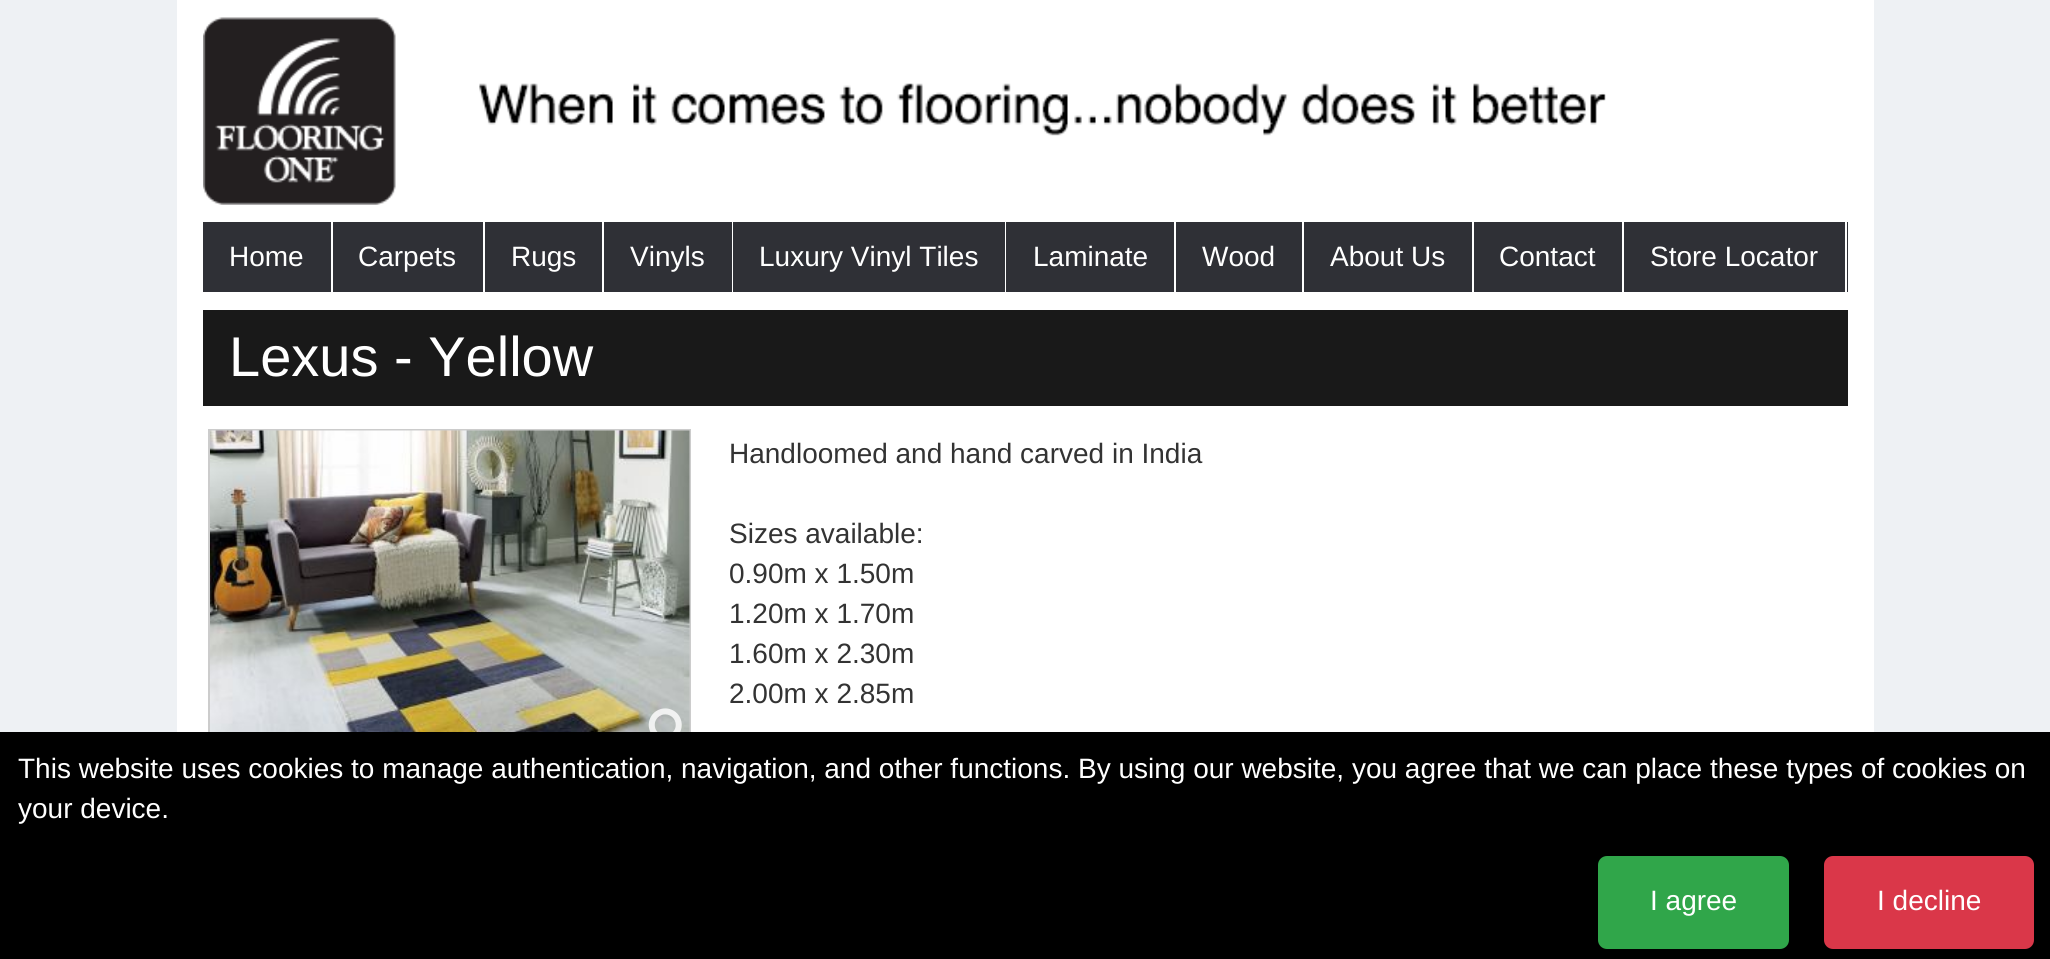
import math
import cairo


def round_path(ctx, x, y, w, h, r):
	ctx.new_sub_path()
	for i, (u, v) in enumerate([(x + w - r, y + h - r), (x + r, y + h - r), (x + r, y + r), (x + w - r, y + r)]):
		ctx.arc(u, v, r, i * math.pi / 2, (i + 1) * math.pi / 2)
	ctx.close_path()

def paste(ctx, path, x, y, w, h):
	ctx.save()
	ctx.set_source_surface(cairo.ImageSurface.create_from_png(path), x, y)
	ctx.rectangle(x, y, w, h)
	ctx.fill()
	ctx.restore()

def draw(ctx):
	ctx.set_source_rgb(0.933, 0.945, 0.957)
	ctx.paint()
	ctx.set_source_rgb(1, 1, 1)
	ctx.rectangle(177, 0, 1697, 732)
	ctx.fill()
	paste(ctx, 'media/1.png', 203, 17, 193, 188)
	paste(ctx, 'media/2.png', 479, 83, 1127, 53)
	ctx.set_source_rgb(0.184, 0.188, 0.212)
	ctx.rectangle(203, 222, 1645, 70)
	ctx.fill()
	ctx.set_source_rgb(1, 1, 1)
	ctx.rectangle(331, 222, 2, 70)
	ctx.fill()
	ctx.select_font_face('Liberation Sans')
	ctx.set_font_size(28)
	ctx.move_to(229, 266)
	ctx.show_text('Home')
	ctx.rectangle(483, 222, 2, 70)
	ctx.fill()
	ctx.move_to(358, 266)
	ctx.show_text('Carpets')
	ctx.rectangle(602, 222, 2, 70)
	ctx.fill()
	ctx.move_to(511, 266)
	ctx.show_text('Rugs')
	ctx.rectangle(732, 222, 1, 70)
	ctx.fill()
	ctx.move_to(630, 266)
	ctx.show_text('Vinyls')
	ctx.rectangle(1005, 222, 1, 70)
	ctx.fill()
	ctx.move_to(759, 266)
	ctx.show_text('Luxury Vinyl Tiles')
	ctx.rectangle(1174, 222, 2, 70)
	ctx.fill()
	ctx.move_to(1033, 266)
	ctx.show_text('Laminate')
	ctx.rectangle(1302, 222, 2, 70)
	ctx.fill()
	ctx.move_to(1202, 266)
	ctx.show_text('Wood')
	ctx.rectangle(1472, 222, 2, 70)
	ctx.fill()
	ctx.move_to(1330, 266)
	ctx.show_text('About Us')
	ctx.rectangle(1622, 222, 2, 70)
	ctx.fill()
	ctx.move_to(1499, 266)
	ctx.show_text('Contact')
	ctx.rectangle(1845, 222, 2, 70)
	ctx.fill()
	ctx.move_to(1650, 266)
	ctx.show_text('Store Locator')
	ctx.set_source_rgb(0.098, 0.098, 0.098)
	ctx.rectangle(203, 310, 1645, 96)
	ctx.fill()
	ctx.set_font_size(56)
	ctx.set_source_rgb(1, 1, 1)
	ctx.move_to(229, 376)
	ctx.show_text('Lexus - Yellow')
	ctx.rectangle(209, 430, 481, 320)
	ctx.set_source_rgb(0.8, 0.8, 0.8)
	ctx.stroke()
	paste(ctx, 'media/3.png', 210, 430, 480, 302)
	paste(ctx, 'media/4.png', 648, 708, 34, 24)
	ctx.set_font_size(28)
	ctx.set_source_rgb(0.2, 0.2, 0.2)
	for x, y, s in [
		(729, 463, 'Handloomed and hand carved in India'),
		(729, 543, 'Sizes available:'),
		(729, 583, '0.90m x 1.50m'),
		(729, 623, '1.20m x 1.70m'),
		(729, 663, '1.60m x 2.30m'),
		(729, 703, '2.00m x 2.85m'),
	]:
		ctx.move_to(x, y)
		ctx.show_text(s)
	ctx.set_source_rgb(0, 0, 0)
	ctx.rectangle(0, 732, 2050, 227)
	ctx.fill()
	ctx.set_source_rgb(1, 1, 1)
	ctx.move_to(18, 778)
	ctx.show_text('This website uses cookies to manage authentication, navigation, and other functions. By using our website, you agree that we can place these types of cookies on')
	ctx.move_to(18, 818)
	ctx.show_text('your device.')
	ctx.set_source_rgb(0.188, 0.651, 0.29)
	round_path(ctx, 1598, 856, 191, 93, 9)
	ctx.fill()
	ctx.set_source_rgb(1, 1, 1)
	ctx.move_to(1650, 910)
	ctx.show_text('I agree')
	ctx.set_source_rgb(0.855, 0.216, 0.286)
	round_path(ctx, 1824, 856, 210, 93, 9)
	ctx.fill()
	ctx.set_source_rgb(1, 1, 1)
	ctx.move_to(1877, 910)
	ctx.show_text('I decline')


surface = cairo.ImageSurface(cairo.FORMAT_RGB24, 2050, 959)
ctx = cairo.Context(surface)
options = cairo.FontOptions()
options.set_hint_metrics(cairo.HINT_METRICS_OFF)
options.set_hint_style(cairo.HINT_STYLE_NONE)
ctx.set_font_options(options)
ctx.set_miter_limit(4)
draw(ctx)
surface.write_to_png('image.png')
